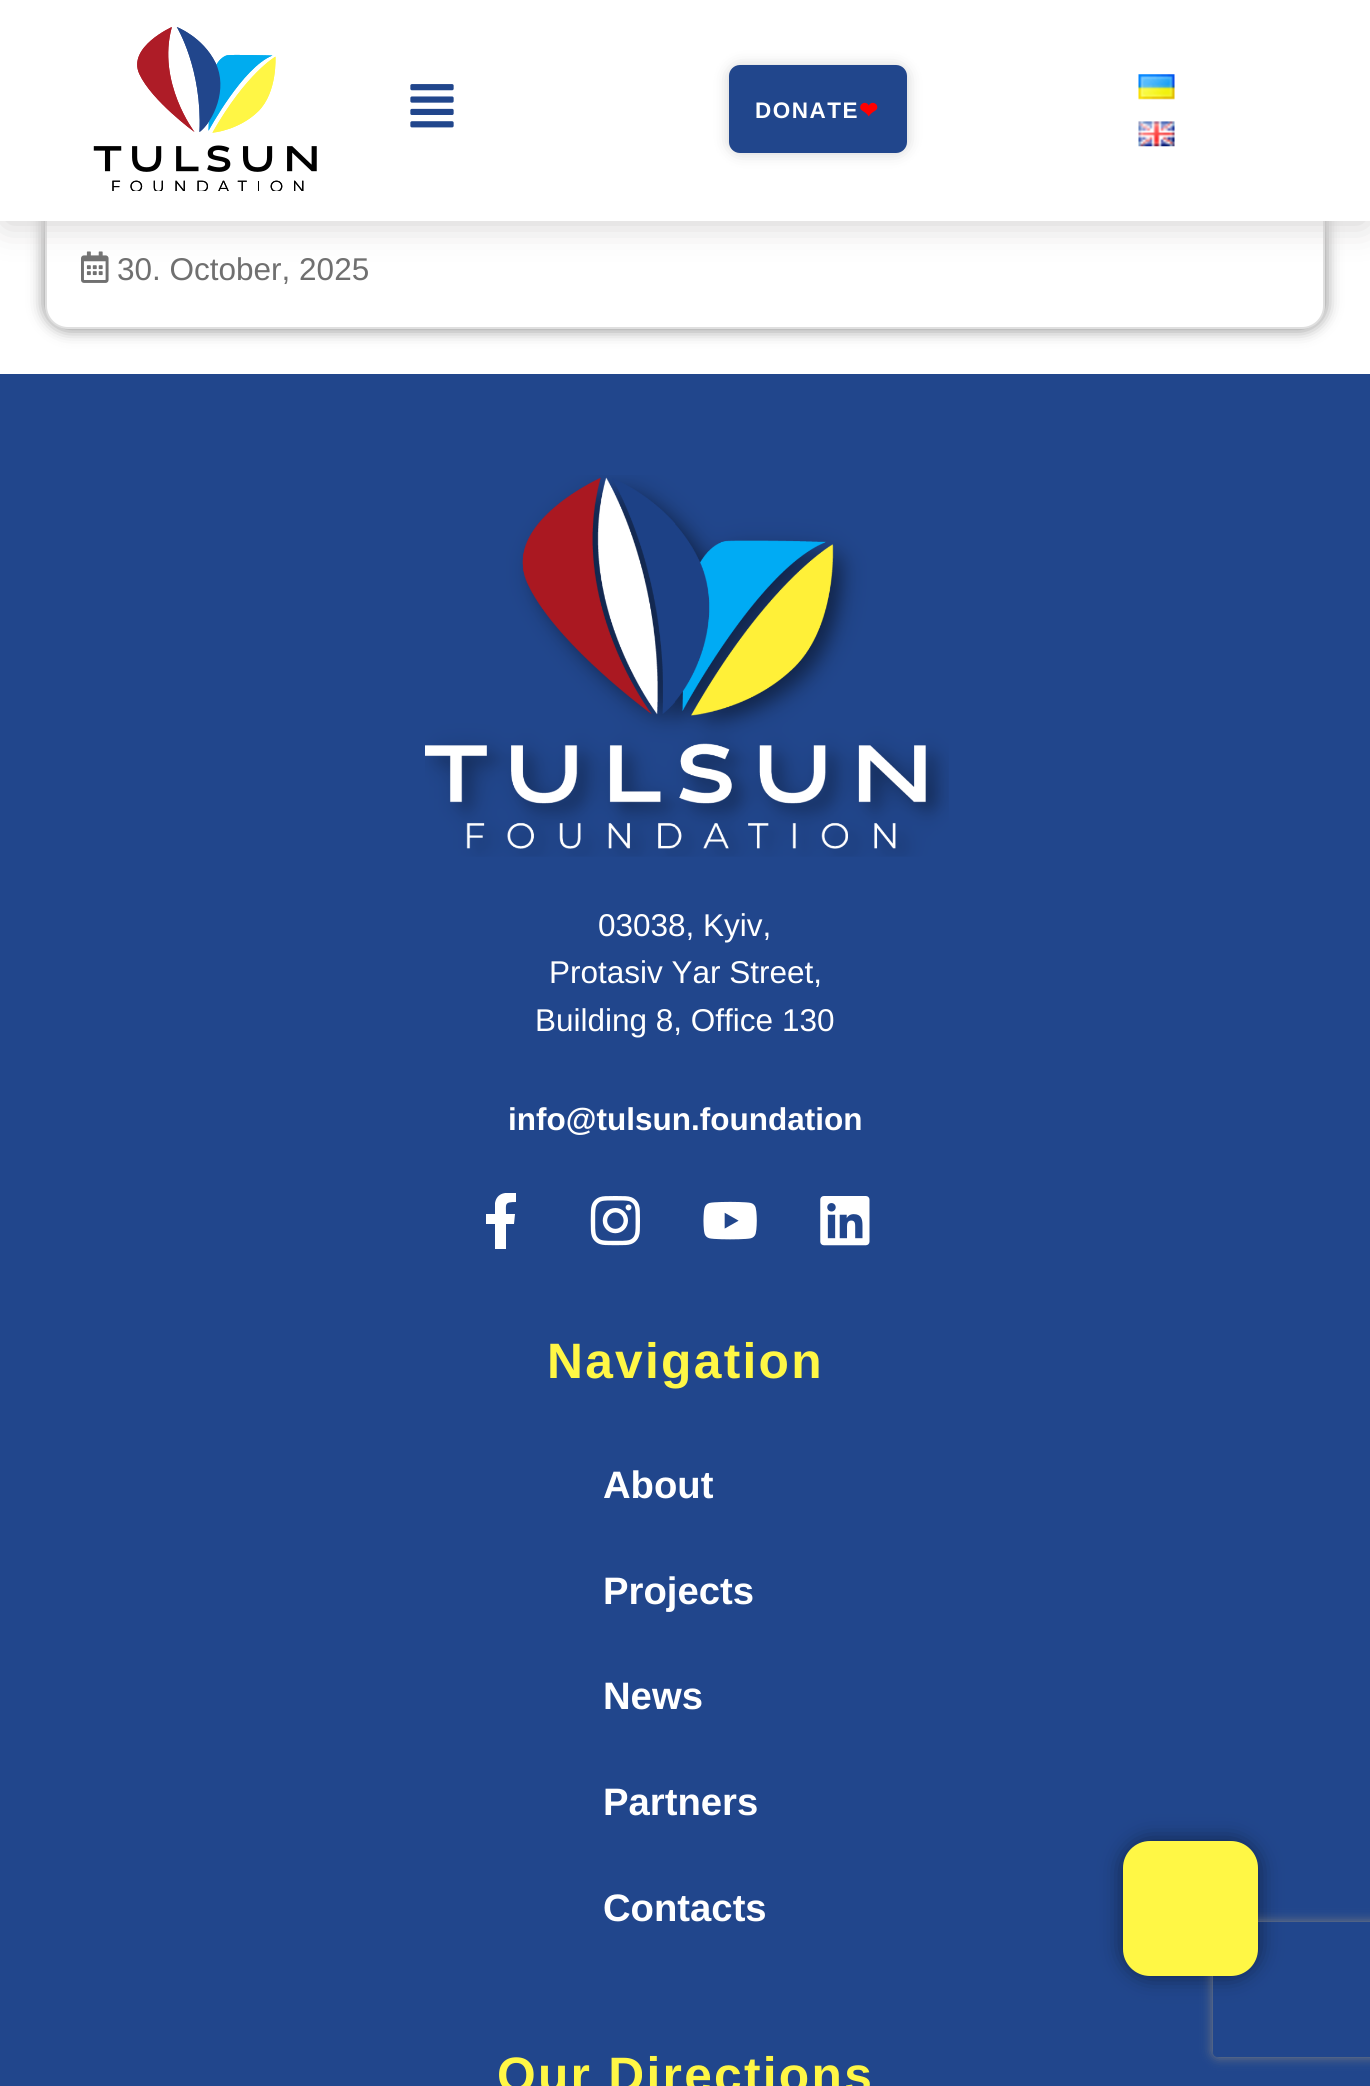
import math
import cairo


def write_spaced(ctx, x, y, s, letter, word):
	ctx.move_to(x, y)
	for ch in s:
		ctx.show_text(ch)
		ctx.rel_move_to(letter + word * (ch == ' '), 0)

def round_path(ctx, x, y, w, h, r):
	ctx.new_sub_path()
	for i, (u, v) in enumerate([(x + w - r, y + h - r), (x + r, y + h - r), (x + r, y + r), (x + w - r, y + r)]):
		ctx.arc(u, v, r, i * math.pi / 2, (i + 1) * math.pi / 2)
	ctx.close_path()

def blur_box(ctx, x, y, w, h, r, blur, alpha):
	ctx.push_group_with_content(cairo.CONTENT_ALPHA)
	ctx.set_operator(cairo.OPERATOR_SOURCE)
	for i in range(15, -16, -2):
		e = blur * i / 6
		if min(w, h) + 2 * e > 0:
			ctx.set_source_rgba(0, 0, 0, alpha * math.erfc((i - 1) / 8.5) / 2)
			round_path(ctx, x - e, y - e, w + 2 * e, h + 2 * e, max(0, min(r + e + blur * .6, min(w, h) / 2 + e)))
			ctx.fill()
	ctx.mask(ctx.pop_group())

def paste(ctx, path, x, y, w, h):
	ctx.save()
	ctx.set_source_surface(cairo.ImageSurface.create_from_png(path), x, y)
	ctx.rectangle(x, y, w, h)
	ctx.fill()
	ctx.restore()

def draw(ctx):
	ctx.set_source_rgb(1, 1, 1)
	ctx.paint()
	ctx.set_source_rgb(0, 0, 0)
	blur_box(ctx, 45, -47, 1280, 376, 23, 8, 0.5)
	ctx.set_source_rgb(1, 1, 1)
	round_path(ctx, 46, -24, 1278, 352, 22)
	ctx.fill_preserve()
	ctx.set_source_rgb(0.875, 0.875, 0.875)
	ctx.stroke()
	paste(ctx, 'media/5.png', 81, 251, 28, 32)
	ctx.set_source_rgb(0.816, 0.808, 0.808)
	blur_box(ctx, 5, 11, 1361, 212, 0, 18, 1)
	ctx.set_source_rgb(1, 1, 1)
	ctx.rectangle(0, 0, 1370, 221)
	ctx.fill()
	paste(ctx, 'media/1.png', 93, 27, 224, 164)
	paste(ctx, 'media/2.png', 410, 84, 44, 44)
	ctx.set_source_rgb(0.522, 0.522, 0.522)
	blur_box(ctx, 731, 68, 174, 83, 9, 8, 0.5)
	ctx.set_source_rgb(0.129, 0.275, 0.549)
	round_path(ctx, 729, 65, 178, 88, 11)
	ctx.fill()
	ctx.select_font_face('Liberation Sans', cairo.FONT_SLANT_NORMAL, cairo.FONT_WEIGHT_BOLD)
	ctx.set_font_size(22.5)
	ctx.set_source_rgb(1, 1, 1)
	write_spaced(ctx, 755, 118, 'DONATE', 1.5, 0)
	ctx.select_font_face('DejaVu Sans', cairo.FONT_SLANT_NORMAL, cairo.FONT_WEIGHT_BOLD)
	ctx.set_source_rgb(1, 0, 0)
	write_spaced(ctx, 859, 118, '❤', 1.5, 0)
	paste(ctx, 'media/3.png', 1138, 74, 37, 26)
	paste(ctx, 'media/4.png', 1138, 121, 37, 26)
	ctx.select_font_face('Liberation Sans')
	ctx.set_font_size(31.5)
	ctx.set_source_rgb(0.439, 0.439, 0.439)
	ctx.move_to(117, 280)
	ctx.show_text('30. October, 2025')
	ctx.set_source_rgb(0.129, 0.275, 0.549)
	ctx.rectangle(0, 374, 1370, 1712)
	ctx.fill()
	paste(ctx, 'media/6.png', 425, 475, 524, 382)
	ctx.set_source_rgb(1, 1, 1)
	for x, y, s in [
		(598, 936, '03038, Kyiv,'),
		(549, 983, 'Protasiv Yar Street,'),
		(535, 1031, 'Building 8, Office 130'),
	]:
		ctx.move_to(x, y)
		ctx.show_text(s)
	ctx.select_font_face('Liberation Sans', cairo.FONT_SLANT_NORMAL, cairo.FONT_WEIGHT_BOLD)
	ctx.move_to(508, 1130)
	ctx.show_text('info@tulsun.foundation')
	ctx.save()
	ctx.rectangle(473, 1193, 56, 56)
	ctx.clip()
	ctx.new_path()
	ctx.move_to(514, 1224)
	ctx.line_to(515, 1214)
	ctx.line_to(506, 1214)
	ctx.curve_to(506, 1204, 504, 1202, 516, 1202)
	ctx.line_to(516, 1193)
	ctx.curve_to(507, 1192, 497, 1192, 495, 1203)
	ctx.line_to(495, 1214)
	ctx.line_to(486, 1214)
	ctx.line_to(486, 1224)
	ctx.line_to(495, 1224)
	ctx.line_to(495, 1249)
	ctx.line_to(506, 1249)
	ctx.line_to(506, 1224)
	ctx.close_path()
	ctx.fill()
	ctx.restore()
	paste(ctx, 'media/7.png', 590, 1196, 50, 50)
	paste(ctx, 'media/8.png', 703, 1201, 54, 39)
	paste(ctx, 'media/9.png', 820, 1196, 50, 50)
	ctx.set_font_size(49.75)
	ctx.set_source_rgb(1, 0.965, 0.271)
	write_spaced(ctx, 547, 1378, 'Navigation', 2.25, 0)
	ctx.set_font_size(38.25)
	ctx.set_source_rgb(1, 1, 1)
	for x, y, s in [
		(603, 1498, 'About'),
		(603, 1604, 'Projects'),
		(603, 1709, 'News'),
		(603, 1815, 'Partners'),
		(603, 1921, 'Contacts'),
	]:
		ctx.move_to(x, y)
		ctx.show_text(s)
	ctx.set_font_size(49.75)
	ctx.set_source_rgb(1, 0.965, 0.271)
	write_spaced(ctx, 497, 2092, 'Our Directions', 2.25, 0)
	ctx.set_source_rgb(0, 0, 0)
	blur_box(ctx, 1123, 1841, 135, 135, 27, 11, 0.5)
	ctx.save()
	ctx.set_fill_rule(cairo.FILL_RULE_EVEN_ODD)
	ctx.new_path()
	ctx.move_to(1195, 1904)
	ctx.line_to(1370, 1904)
	ctx.line_to(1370, 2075)
	ctx.line_to(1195, 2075)
	ctx.close_path()
	ctx.move_to(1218, 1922)
	ctx.line_to(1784, 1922)
	ctx.curve_to(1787, 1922, 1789, 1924, 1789, 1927)
	ctx.line_to(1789, 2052)
	ctx.curve_to(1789, 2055, 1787, 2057, 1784, 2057)
	ctx.line_to(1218, 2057)
	ctx.curve_to(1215, 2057, 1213, 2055, 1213, 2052)
	ctx.line_to(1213, 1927)
	ctx.curve_to(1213, 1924, 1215, 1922, 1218, 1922)
	ctx.close_path()
	ctx.clip()
	ctx.set_source_rgb(0.502, 0.502, 0.502)
	blur_box(ctx, 1213, 1922, 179, 135, 5, 5.5, 1)
	ctx.restore()
	ctx.set_source_rgb(1, 0.965, 0.271)
	round_path(ctx, 1123, 1841, 135, 135, 27)
	ctx.fill()


surface = cairo.ImageSurface(cairo.FORMAT_RGB24, 1370, 2086)
ctx = cairo.Context(surface)
options = cairo.FontOptions()
options.set_hint_metrics(cairo.HINT_METRICS_OFF)
options.set_hint_style(cairo.HINT_STYLE_NONE)
ctx.set_font_options(options)
ctx.set_miter_limit(4)
draw(ctx)
surface.write_to_png('image.png')
